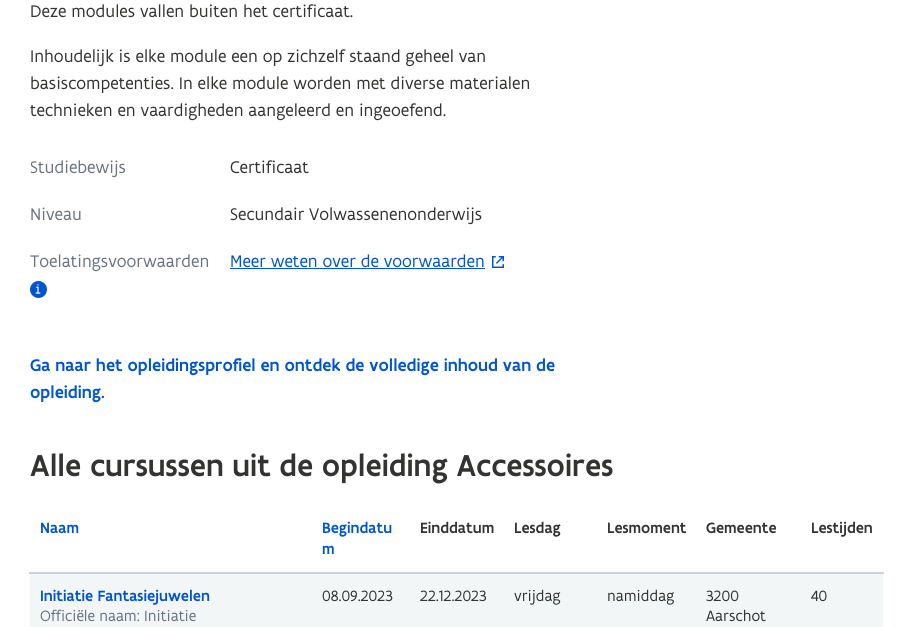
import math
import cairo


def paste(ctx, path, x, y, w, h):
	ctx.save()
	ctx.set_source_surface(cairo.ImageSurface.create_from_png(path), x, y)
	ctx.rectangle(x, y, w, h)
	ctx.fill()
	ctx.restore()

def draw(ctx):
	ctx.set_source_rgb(1, 1, 1)
	ctx.paint()
	ctx.select_font_face('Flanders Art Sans')
	ctx.set_font_size(18)
	ctx.set_source_rgb(0.2, 0.2, 0.196)
	for x, y, s in [
		(30, 17, 'Deze modules vallen buiten het certificaat.'),
		(30, 62, 'Inhoudelijk is elke module een op zichzelf staand geheel van'),
		(30, 89, 'basiscompetenties. In elke module worden met diverse materialen'),
		(30, 116, 'technieken en vaardigheden aangeleerd en ingeoefend.'),
	]:
		ctx.move_to(x, y)
		ctx.show_text(s)
	ctx.set_source_rgb(0.408, 0.455, 0.514)
	ctx.move_to(30, 173)
	ctx.show_text('Studiebewijs')
	ctx.set_source_rgb(0.2, 0.2, 0.196)
	ctx.move_to(230, 173)
	ctx.show_text('Certificaat')
	ctx.set_source_rgb(0.408, 0.455, 0.514)
	ctx.move_to(30, 220)
	ctx.show_text('Niveau')
	ctx.set_source_rgb(0.2, 0.2, 0.196)
	ctx.move_to(230, 220)
	ctx.show_text('Secundair Volwassenenonderwijs')
	ctx.set_source_rgb(0.408, 0.455, 0.514)
	ctx.move_to(30, 267)
	ctx.show_text('Toelatingsvoorwaarden')
	ctx.set_source_rgb(0, 0.333, 0.8)
	ctx.new_path()
	ctx.arc(38.5, 289.5, 8.5, 0, 2 * math.pi)
	ctx.fill()
	paste(ctx, 'media/1.png', 35, 284, 6, 10)
	ctx.move_to(230, 267)
	ctx.show_text('Meer weten over de voorwaarden')
	ctx.rectangle(230, 268, 255, 1)
	ctx.fill()
	paste(ctx, 'media/2.png', 492, 256, 12, 12)
	ctx.select_font_face('Flanders Art Sans Medium')
	ctx.move_to(30, 371)
	ctx.show_text('Ga naar het opleidingsprofiel en ontdek de volledige inhoud van de')
	ctx.move_to(30, 398)
	ctx.show_text('opleiding.')
	ctx.set_font_size(32)
	ctx.set_source_rgb(0.2, 0.2, 0.196)
	ctx.move_to(30, 476)
	ctx.show_text('Alle cursussen uit de opleiding Accessoires')
	ctx.set_source_rgb(0.796, 0.824, 0.855)
	ctx.rectangle(29, 572, 855, 2)
	ctx.fill()
	ctx.set_font_size(16)
	ctx.set_source_rgb(0, 0.333, 0.8)
	for x, y, s in [
		(40, 533, 'Naam'),
		(322, 533, 'Begindatu'),
		(322, 554, 'm'),
	]:
		ctx.move_to(x, y)
		ctx.show_text(s)
	ctx.set_source_rgb(0.2, 0.2, 0.196)
	for x, y, s in [
		(420, 533, 'Einddatum'),
		(514, 533, 'Lesdag'),
		(607, 533, 'Lesmoment'),
		(706, 533, 'Gemeente'),
		(811, 533, 'Lestijden'),
	]:
		ctx.move_to(x, y)
		ctx.show_text(s)
	ctx.set_source_rgb(0.953, 0.961, 0.965)
	ctx.rectangle(30, 574, 853, 53)
	ctx.fill()
	ctx.set_source_rgb(0, 0.333, 0.8)
	ctx.move_to(40, 601)
	ctx.show_text('Initiatie Fantasiejuwelen')
	ctx.select_font_face('Flanders Art Sans')
	ctx.set_source_rgb(0.408, 0.455, 0.514)
	ctx.move_to(40, 621)
	ctx.show_text('Officiële naam: Initiatie')
	ctx.set_source_rgb(0.2, 0.2, 0.196)
	for x, y, s in [
		(322, 601, '08.09.2023'),
		(420, 601, '22.12.2023'),
		(514, 601, 'vrijdag'),
		(607, 601, 'namiddag'),
		(706, 601, '3200'),
		(706, 621, 'Aarschot'),
		(811, 601, '40'),
	]:
		ctx.move_to(x, y)
		ctx.show_text(s)


surface = cairo.ImageSurface(cairo.FORMAT_RGB24, 913, 627)
ctx = cairo.Context(surface)
options = cairo.FontOptions()
options.set_hint_metrics(cairo.HINT_METRICS_OFF)
options.set_hint_style(cairo.HINT_STYLE_NONE)
ctx.set_font_options(options)
ctx.set_miter_limit(4)
draw(ctx)
surface.write_to_png('image.png')
